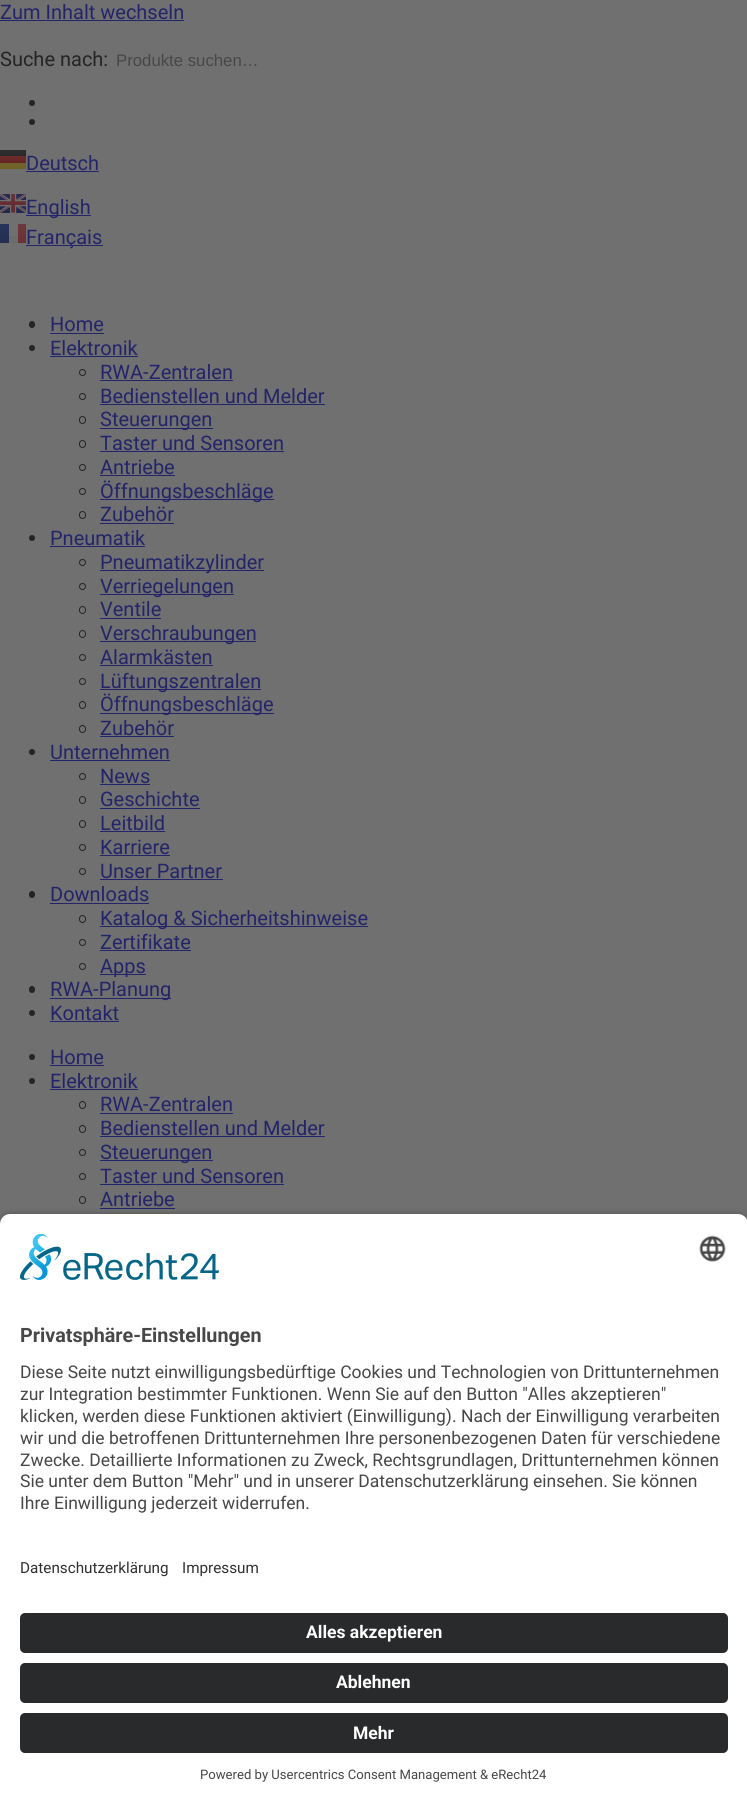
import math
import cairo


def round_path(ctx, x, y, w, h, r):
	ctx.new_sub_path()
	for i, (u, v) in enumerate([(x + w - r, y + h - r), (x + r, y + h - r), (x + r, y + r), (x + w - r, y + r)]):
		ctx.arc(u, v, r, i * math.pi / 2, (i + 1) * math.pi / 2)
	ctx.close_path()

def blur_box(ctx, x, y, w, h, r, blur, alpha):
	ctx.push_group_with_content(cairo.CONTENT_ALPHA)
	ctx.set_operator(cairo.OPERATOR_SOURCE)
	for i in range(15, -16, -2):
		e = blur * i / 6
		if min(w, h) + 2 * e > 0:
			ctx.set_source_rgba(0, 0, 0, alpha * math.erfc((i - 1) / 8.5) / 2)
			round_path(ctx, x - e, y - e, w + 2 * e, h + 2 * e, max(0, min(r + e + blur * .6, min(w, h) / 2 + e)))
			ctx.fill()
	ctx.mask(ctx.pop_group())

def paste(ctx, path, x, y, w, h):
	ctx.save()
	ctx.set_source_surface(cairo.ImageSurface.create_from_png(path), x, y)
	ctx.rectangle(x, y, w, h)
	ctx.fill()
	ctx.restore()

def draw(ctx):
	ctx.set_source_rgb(0.439, 0.439, 0.439)
	ctx.paint()
	ctx.select_font_face('Roboto')
	ctx.set_font_size(20)
	ctx.set_source_rgb(0.141, 0.141, 0.42)
	ctx.move_to(0, 19)
	ctx.show_text('Zum Inhalt wechseln')
	ctx.rectangle(0, 20, 184, 1)
	ctx.fill()
	ctx.set_source_rgb(0.141, 0.141, 0.141)
	ctx.move_to(0, 66)
	ctx.show_text('Suche nach:')
	ctx.select_font_face('Liberation Sans')
	ctx.set_font_size(16.75)
	ctx.set_source_rgb(0.278, 0.278, 0.278)
	ctx.move_to(116, 66)
	ctx.show_text('Produkte suchen…')
	ctx.set_source_rgb(0.141, 0.141, 0.141)
	ctx.new_path()
	ctx.arc(32, 103, 3, 0, 2 * math.pi)
	ctx.fill()
	ctx.arc(32, 122, 3, 0, 2 * math.pi)
	ctx.fill()
	ctx.select_font_face('Roboto')
	ctx.set_font_size(20)
	ctx.set_source_rgb(0.141, 0.141, 0.42)
	ctx.move_to(26, 170)
	ctx.show_text('Deutsch')
	ctx.rectangle(26, 171, 73, 1)
	ctx.fill()
	gradient = cairo.LinearGradient(13, 150, 13, 156)
	gradient.add_color_stop_rgba(0, 0.184, 0.184, 0.184, 1)
	gradient.add_color_stop_rgba(1, 0.157, 0.157, 0.157, 1)
	ctx.set_source(gradient)
	ctx.rectangle(0, 150, 26, 6)
	ctx.fill()
	gradient = cairo.LinearGradient(13, 156, 13, 163)
	gradient.add_color_stop_rgba(0, 0.424, 0.165, 0.165, 1)
	gradient.add_color_stop_rgba(1, 0.4, 0.141, 0.141, 1)
	ctx.set_source(gradient)
	ctx.rectangle(0, 156, 26, 7)
	ctx.fill()
	gradient = cairo.LinearGradient(13, 163, 13, 169)
	gradient.add_color_stop_rgba(0, 0.439, 0.392, 0.18, 1)
	gradient.add_color_stop_rgba(1, 0.439, 0.384, 0.141, 1)
	ctx.set_source(gradient)
	ctx.rectangle(0, 163, 26, 6)
	ctx.fill()
	paste(ctx, 'media/1.png', 0, 194, 26, 19)
	ctx.set_source_rgb(0.141, 0.141, 0.42)
	ctx.rectangle(26, 215, 65, 1)
	ctx.fill()
	ctx.move_to(26, 214)
	ctx.show_text('English')
	ctx.rectangle(26, 245, 77, 1)
	ctx.fill()
	ctx.move_to(26, 244)
	ctx.show_text('Français')
	gradient = cairo.LinearGradient(19, 224, 19, 243)
	gradient.add_color_stop_rgba(0, 0.427, 0.224, 0.239, 1)
	gradient.add_color_stop_rgba(1, 0.42, 0.188, 0.208, 1)
	ctx.set_source(gradient)
	ctx.rectangle(18, 224, 8, 19)
	ctx.fill()
	gradient = cairo.LinearGradient(4.4, 224, 4.4, 243)
	gradient.add_color_stop_rgba(0, 0.161, 0.204, 0.361, 1)
	gradient.add_color_stop_rgba(1, 0.145, 0.18, 0.318, 1)
	ctx.set_source(gradient)
	ctx.rectangle(0, 224, 9, 19)
	ctx.fill()
	gradient = cairo.LinearGradient(13, 224, 13, 243)
	gradient.add_color_stop_rgba(0, 0.439, 0.439, 0.439, 1)
	gradient.add_color_stop_rgba(1, 0.424, 0.424, 0.424, 1)
	ctx.set_source(gradient)
	ctx.rectangle(9, 236, 9, 7)
	ctx.fill()
	ctx.set_source_rgb(0.141, 0.141, 0.141)
	round_path(ctx, 29, 321, 6, 7, 3)
	ctx.fill()
	ctx.set_source_rgb(0.141, 0.141, 0.42)
	ctx.move_to(50, 331)
	ctx.show_text('Home')
	ctx.rectangle(50, 333, 54, 1)
	ctx.fill()
	ctx.set_source_rgb(0.141, 0.141, 0.141)
	ctx.arc(32, 348, 3, 0, 2 * math.pi)
	ctx.fill()
	ctx.set_source_rgb(0.141, 0.141, 0.42)
	ctx.move_to(50, 355)
	ctx.show_text('Elektronik')
	ctx.rectangle(50, 356, 88, 1)
	ctx.fill()
	ctx.arc(82.5, 372.5, 3, 0, 2 * math.pi)
	ctx.set_source_rgb(0.141, 0.141, 0.141)
	ctx.set_line_width(1)
	ctx.stroke()
	ctx.set_source_rgb(0.141, 0.141, 0.42)
	ctx.move_to(100, 379)
	ctx.show_text('RWA-Zentralen')
	ctx.rectangle(100, 380, 133, 1)
	ctx.fill()
	ctx.arc(82.5, 396.5, 3, 0, 2 * math.pi)
	ctx.set_source_rgb(0.141, 0.141, 0.141)
	ctx.stroke()
	ctx.set_source_rgb(0.141, 0.141, 0.42)
	ctx.move_to(100, 403)
	ctx.show_text('Bedienstellen und Melder')
	ctx.rectangle(100, 404, 225, 1)
	ctx.fill()
	round_path(ctx, 79.5, 416.5, 6, 7, 3)
	ctx.set_source_rgb(0.141, 0.141, 0.141)
	ctx.stroke()
	ctx.set_source_rgb(0.141, 0.141, 0.42)
	ctx.rectangle(100, 428, 113, 1)
	ctx.fill()
	ctx.move_to(100, 426)
	ctx.show_text('Steuerungen')
	round_path(ctx, 79.5, 440.5, 6, 7, 3)
	ctx.set_source_rgb(0.141, 0.141, 0.141)
	ctx.stroke()
	ctx.set_source_rgb(0.141, 0.141, 0.42)
	ctx.move_to(100, 450)
	ctx.show_text('Taster und Sensoren')
	ctx.rectangle(100, 451, 184, 1)
	ctx.fill()
	ctx.arc(82.5, 467.5, 3, 0, 2 * math.pi)
	ctx.set_source_rgb(0.141, 0.141, 0.141)
	ctx.stroke()
	ctx.set_source_rgb(0.141, 0.141, 0.42)
	ctx.move_to(100, 474)
	ctx.show_text('Antriebe')
	ctx.rectangle(100, 475, 75, 1)
	ctx.fill()
	ctx.arc(82.5, 491.5, 3, 0, 2 * math.pi)
	ctx.set_source_rgb(0.141, 0.141, 0.141)
	ctx.stroke()
	ctx.set_source_rgb(0.141, 0.141, 0.42)
	ctx.rectangle(100, 499, 174, 1)
	ctx.fill()
	ctx.move_to(100, 498)
	ctx.show_text('Öffnungsbeschläge')
	round_path(ctx, 79.5, 511.5, 6, 7, 3)
	ctx.set_source_rgb(0.141, 0.141, 0.141)
	ctx.stroke()
	ctx.set_source_rgb(0.141, 0.141, 0.42)
	ctx.move_to(100, 521)
	ctx.show_text('Zubehör')
	ctx.rectangle(100, 523, 74, 1)
	ctx.fill()
	ctx.set_source_rgb(0.141, 0.141, 0.141)
	ctx.arc(32, 538, 3, 0, 2 * math.pi)
	ctx.fill()
	ctx.set_source_rgb(0.141, 0.141, 0.42)
	ctx.move_to(50, 545)
	ctx.show_text('Pneumatik')
	ctx.rectangle(50, 546, 95, 1)
	ctx.fill()
	ctx.arc(82.5, 562.5, 3, 0, 2 * math.pi)
	ctx.set_source_rgb(0.141, 0.141, 0.141)
	ctx.stroke()
	ctx.set_source_rgb(0.141, 0.141, 0.42)
	ctx.rectangle(100, 570, 164, 1)
	ctx.fill()
	ctx.move_to(100, 569)
	ctx.show_text('Pneumatikzylinder')
	ctx.new_path()
	ctx.arc(82.5, 586.5, 3, 0, 2 * math.pi)
	ctx.set_source_rgb(0.141, 0.141, 0.141)
	ctx.stroke()
	ctx.set_source_rgb(0.141, 0.141, 0.42)
	ctx.rectangle(100, 594, 134, 1)
	ctx.fill()
	ctx.move_to(100, 593)
	ctx.show_text('Verriegelungen')
	round_path(ctx, 79.5, 606.5, 6, 7, 3)
	ctx.set_source_rgb(0.141, 0.141, 0.141)
	ctx.stroke()
	ctx.set_source_rgb(0.141, 0.141, 0.42)
	ctx.move_to(100, 616)
	ctx.show_text('Ventile')
	ctx.rectangle(100, 618, 61, 1)
	ctx.fill()
	round_path(ctx, 79.5, 630.5, 6, 7, 3)
	ctx.set_source_rgb(0.141, 0.141, 0.141)
	ctx.stroke()
	ctx.set_source_rgb(0.141, 0.141, 0.42)
	ctx.rectangle(100, 641, 156, 1)
	ctx.fill()
	ctx.move_to(100, 640)
	ctx.show_text('Verschraubungen')
	ctx.new_path()
	ctx.arc(82.5, 657.5, 3, 0, 2 * math.pi)
	ctx.set_source_rgb(0.141, 0.141, 0.141)
	ctx.stroke()
	ctx.set_source_rgb(0.141, 0.141, 0.42)
	ctx.move_to(100, 664)
	ctx.show_text('Alarmkästen')
	ctx.rectangle(100, 665, 113, 1)
	ctx.fill()
	ctx.arc(82.5, 681.5, 3, 0, 2 * math.pi)
	ctx.set_source_rgb(0.141, 0.141, 0.141)
	ctx.stroke()
	ctx.set_source_rgb(0.141, 0.141, 0.42)
	ctx.rectangle(100, 689, 161, 1)
	ctx.fill()
	ctx.move_to(100, 688)
	ctx.show_text('Lüftungszentralen')
	round_path(ctx, 79.5, 701.5, 6, 7, 3)
	ctx.set_source_rgb(0.141, 0.141, 0.141)
	ctx.stroke()
	ctx.set_source_rgb(0.141, 0.141, 0.42)
	ctx.rectangle(100, 713, 174, 1)
	ctx.fill()
	ctx.move_to(100, 711)
	ctx.show_text('Öffnungsbeschläge')
	round_path(ctx, 79.5, 725.5, 6, 7, 3)
	ctx.set_source_rgb(0.141, 0.141, 0.141)
	ctx.stroke()
	ctx.set_source_rgb(0.141, 0.141, 0.42)
	ctx.move_to(100, 735)
	ctx.show_text('Zubehör')
	ctx.rectangle(100, 736, 74, 1)
	ctx.fill()
	ctx.set_source_rgb(0.141, 0.141, 0.141)
	ctx.arc(32, 752, 3, 0, 2 * math.pi)
	ctx.fill()
	ctx.set_source_rgb(0.141, 0.141, 0.42)
	ctx.move_to(50, 759)
	ctx.show_text('Unternehmen')
	ctx.rectangle(50, 760, 120, 1)
	ctx.fill()
	ctx.arc(82.5, 776.5, 3, 0, 2 * math.pi)
	ctx.set_source_rgb(0.141, 0.141, 0.141)
	ctx.stroke()
	ctx.set_source_rgb(0.141, 0.141, 0.42)
	ctx.move_to(100, 783)
	ctx.show_text('News')
	ctx.rectangle(100, 784, 50, 1)
	ctx.fill()
	round_path(ctx, 79.5, 796.5, 6, 7, 3)
	ctx.set_source_rgb(0.141, 0.141, 0.141)
	ctx.stroke()
	ctx.set_source_rgb(0.141, 0.141, 0.42)
	ctx.move_to(100, 806)
	ctx.show_text('Geschichte')
	ctx.rectangle(100, 808, 100, 1)
	ctx.fill()
	round_path(ctx, 79.5, 820.5, 6, 7, 3)
	ctx.set_source_rgb(0.141, 0.141, 0.141)
	ctx.stroke()
	ctx.set_source_rgb(0.141, 0.141, 0.42)
	ctx.move_to(100, 830)
	ctx.show_text('Leitbild')
	ctx.rectangle(100, 831, 65, 1)
	ctx.fill()
	ctx.arc(82.5, 847.5, 3, 0, 2 * math.pi)
	ctx.set_source_rgb(0.141, 0.141, 0.141)
	ctx.stroke()
	ctx.set_source_rgb(0.141, 0.141, 0.42)
	ctx.move_to(100, 854)
	ctx.show_text('Karriere')
	ctx.rectangle(100, 855, 70, 1)
	ctx.fill()
	ctx.arc(82.5, 871.5, 3, 0, 2 * math.pi)
	ctx.set_source_rgb(0.141, 0.141, 0.141)
	ctx.stroke()
	ctx.set_source_rgb(0.141, 0.141, 0.42)
	ctx.move_to(100, 878)
	ctx.show_text('Unser Partner')
	ctx.rectangle(100, 879, 123, 1)
	ctx.fill()
	ctx.set_source_rgb(0.141, 0.141, 0.141)
	round_path(ctx, 29, 891, 6, 7, 3)
	ctx.fill()
	ctx.set_source_rgb(0.141, 0.141, 0.42)
	ctx.move_to(50, 901)
	ctx.show_text('Downloads')
	ctx.rectangle(50, 903, 99, 1)
	ctx.fill()
	round_path(ctx, 79.5, 915.5, 6, 7, 3)
	ctx.set_source_rgb(0.141, 0.141, 0.141)
	ctx.stroke()
	ctx.set_source_rgb(0.141, 0.141, 0.42)
	ctx.rectangle(100, 926, 268, 1)
	ctx.fill()
	ctx.move_to(100, 925)
	ctx.show_text('Katalog & Sicherheitshinweise')
	ctx.new_path()
	ctx.arc(82.5, 942.5, 3, 0, 2 * math.pi)
	ctx.set_source_rgb(0.141, 0.141, 0.141)
	ctx.stroke()
	ctx.set_source_rgb(0.141, 0.141, 0.42)
	ctx.move_to(100, 949)
	ctx.show_text('Zertifikate')
	ctx.rectangle(100, 950, 91, 1)
	ctx.fill()
	ctx.arc(82.5, 966.5, 3, 0, 2 * math.pi)
	ctx.set_source_rgb(0.141, 0.141, 0.141)
	ctx.stroke()
	ctx.set_source_rgb(0.141, 0.141, 0.42)
	ctx.rectangle(100, 974, 46, 1)
	ctx.fill()
	ctx.move_to(100, 973)
	ctx.show_text('Apps')
	ctx.set_source_rgb(0.141, 0.141, 0.141)
	round_path(ctx, 29, 986, 6, 7, 3)
	ctx.fill()
	ctx.set_source_rgb(0.141, 0.141, 0.42)
	ctx.rectangle(50, 998, 121, 1)
	ctx.fill()
	ctx.move_to(50, 996)
	ctx.show_text('RWA-Planung')
	ctx.set_source_rgb(0.141, 0.141, 0.141)
	ctx.new_path()
	ctx.arc(32, 1013, 3, 0, 2 * math.pi)
	ctx.fill()
	ctx.set_source_rgb(0.141, 0.141, 0.42)
	ctx.move_to(50, 1020)
	ctx.show_text('Kontakt')
	ctx.rectangle(50, 1021, 69, 1)
	ctx.fill()
	ctx.set_source_rgb(0.141, 0.141, 0.141)
	ctx.arc(32, 1057, 3, 0, 2 * math.pi)
	ctx.fill()
	ctx.set_source_rgb(0.141, 0.141, 0.42)
	ctx.move_to(50, 1064)
	ctx.show_text('Home')
	ctx.rectangle(50, 1065, 54, 1)
	ctx.fill()
	ctx.set_source_rgb(0.141, 0.141, 0.141)
	ctx.arc(32, 1081, 3, 0, 2 * math.pi)
	ctx.fill()
	ctx.set_source_rgb(0.141, 0.141, 0.42)
	ctx.move_to(50, 1088)
	ctx.show_text('Elektronik')
	ctx.rectangle(50, 1089, 88, 1)
	ctx.fill()
	round_path(ctx, 79.5, 1101.5, 6, 7, 3)
	ctx.set_source_rgb(0.141, 0.141, 0.141)
	ctx.stroke()
	ctx.set_source_rgb(0.141, 0.141, 0.42)
	ctx.move_to(100, 1111)
	ctx.show_text('RWA-Zentralen')
	ctx.rectangle(100, 1113, 133, 1)
	ctx.fill()
	round_path(ctx, 79.5, 1125.5, 6, 7, 3)
	ctx.set_source_rgb(0.141, 0.141, 0.141)
	ctx.stroke()
	ctx.set_source_rgb(0.141, 0.141, 0.42)
	ctx.move_to(100, 1135)
	ctx.show_text('Bedienstellen und Melder')
	ctx.rectangle(100, 1136, 225, 1)
	ctx.fill()
	ctx.arc(82.5, 1152.5, 3, 0, 2 * math.pi)
	ctx.set_source_rgb(0.141, 0.141, 0.141)
	ctx.stroke()
	ctx.set_source_rgb(0.141, 0.141, 0.42)
	ctx.rectangle(100, 1160, 113, 1)
	ctx.fill()
	ctx.move_to(100, 1159)
	ctx.show_text('Steuerungen')
	ctx.new_path()
	ctx.arc(82.5, 1176.5, 3, 0, 2 * math.pi)
	ctx.set_source_rgb(0.141, 0.141, 0.141)
	ctx.stroke()
	ctx.set_source_rgb(0.141, 0.141, 0.42)
	ctx.move_to(100, 1183)
	ctx.show_text('Taster und Sensoren')
	ctx.rectangle(100, 1184, 184, 1)
	ctx.fill()
	round_path(ctx, 79.5, 1196.5, 6, 7, 3)
	ctx.set_source_rgb(0.141, 0.141, 0.141)
	ctx.stroke()
	ctx.set_source_rgb(0.141, 0.141, 0.42)
	ctx.move_to(100, 1206)
	ctx.show_text('Antriebe')
	ctx.rectangle(100, 1208, 75, 1)
	ctx.fill()
	ctx.set_source_rgb(0, 0, 0)
	blur_box(ctx, 0, 1218, 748, 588, 10, 4.5, 0.8)
	ctx.set_source_rgb(1, 1, 1)
	ctx.new_path()
	ctx.move_to(10, 1214)
	ctx.line_to(738, 1214)
	ctx.curve_to(743.5, 1214, 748, 1218.5, 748, 1224)
	ctx.line_to(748, 1540)
	ctx.line_to(0, 1540)
	ctx.line_to(0, 1224)
	ctx.curve_to(0, 1218.5, 4.5, 1214, 10, 1214)
	ctx.close_path()
	ctx.fill()
	paste(ctx, 'media/2.png', 20, 1234, 199, 46)
	paste(ctx, 'media/3.png', 699, 1235, 27, 27)
	ctx.select_font_face('Roboto', cairo.FONT_SLANT_NORMAL, cairo.FONT_WEIGHT_BOLD)
	ctx.set_font_size(19.75)
	ctx.set_source_rgb(0.278, 0.278, 0.278)
	ctx.move_to(20, 1342)
	ctx.show_text('Privatsphäre-Einstellungen')
	ctx.select_font_face('Roboto')
	ctx.set_font_size(17.5)
	for x, y, s in [
		(20, 1378, 'Diese Seite nutzt einwilligungsbedürftige Cookies und Technologien von Drittunternehmen'),
		(20, 1400, 'zur Integration bestimmter Funktionen. Wenn Sie auf den Button "Alles akzeptieren"'),
		(20, 1422, 'klicken, werden diese Funktionen aktiviert (Einwilligung). Nach der Einwilligung verarbeiten'),
		(20, 1444, 'wir und die betroffenen Drittunternehmen Ihre personenbezogenen Daten für verschiedene'),
		(20, 1466, 'Zwecke. Detaillierte Informationen zu Zweck, Rechtsgrundlagen, Drittunternehmen können'),
		(20, 1487, 'Sie unter dem Button "Mehr" und in unserer Datenschutzerklärung einsehen. Sie können'),
		(20, 1509, 'Ihre Einwilligung jederzeit widerrufen.'),
	]:
		ctx.move_to(x, y)
		ctx.show_text(s)
	ctx.set_source_rgb(1, 1, 1)
	ctx.rectangle(0, 1540, 747, 262)
	ctx.fill()
	ctx.set_font_size(15.25)
	ctx.set_source_rgb(0.188, 0.188, 0.188)
	ctx.move_to(20, 1573)
	ctx.show_text('Datenschutzerklärung')
	ctx.move_to(182, 1573)
	ctx.show_text('Impressum')
	ctx.set_source_rgb(0.161, 0.165, 0.169)
	round_path(ctx, 20, 1613, 708, 40, 5)
	ctx.fill()
	ctx.select_font_face('Roboto', cairo.FONT_SLANT_NORMAL, cairo.FONT_WEIGHT_BOLD)
	ctx.set_font_size(17.5)
	ctx.set_source_rgb(1, 1, 1)
	ctx.move_to(306, 1638)
	ctx.show_text('Alles akzeptieren')
	ctx.set_source_rgb(0.161, 0.165, 0.169)
	round_path(ctx, 20, 1663, 708, 40, 5)
	ctx.fill()
	ctx.set_source_rgb(1, 1, 1)
	ctx.move_to(336, 1688)
	ctx.show_text('Ablehnen')
	ctx.set_source_rgb(0.161, 0.165, 0.169)
	round_path(ctx, 20, 1713, 708, 40, 5)
	ctx.fill()
	ctx.set_source_rgb(1, 1, 1)
	ctx.move_to(353, 1739)
	ctx.show_text('Mehr')
	ctx.select_font_face('Roboto')
	ctx.set_font_size(13.1)
	ctx.set_source_rgb(0.278, 0.278, 0.278)
	ctx.move_to(200, 1779)
	ctx.show_text('Powered by Usercentrics Consent Management & eRecht24')


surface = cairo.ImageSurface(cairo.FORMAT_RGB24, 747, 1802)
ctx = cairo.Context(surface)
options = cairo.FontOptions()
options.set_hint_metrics(cairo.HINT_METRICS_OFF)
options.set_hint_style(cairo.HINT_STYLE_NONE)
ctx.set_font_options(options)
ctx.set_miter_limit(4)
draw(ctx)
surface.write_to_png('image.png')
